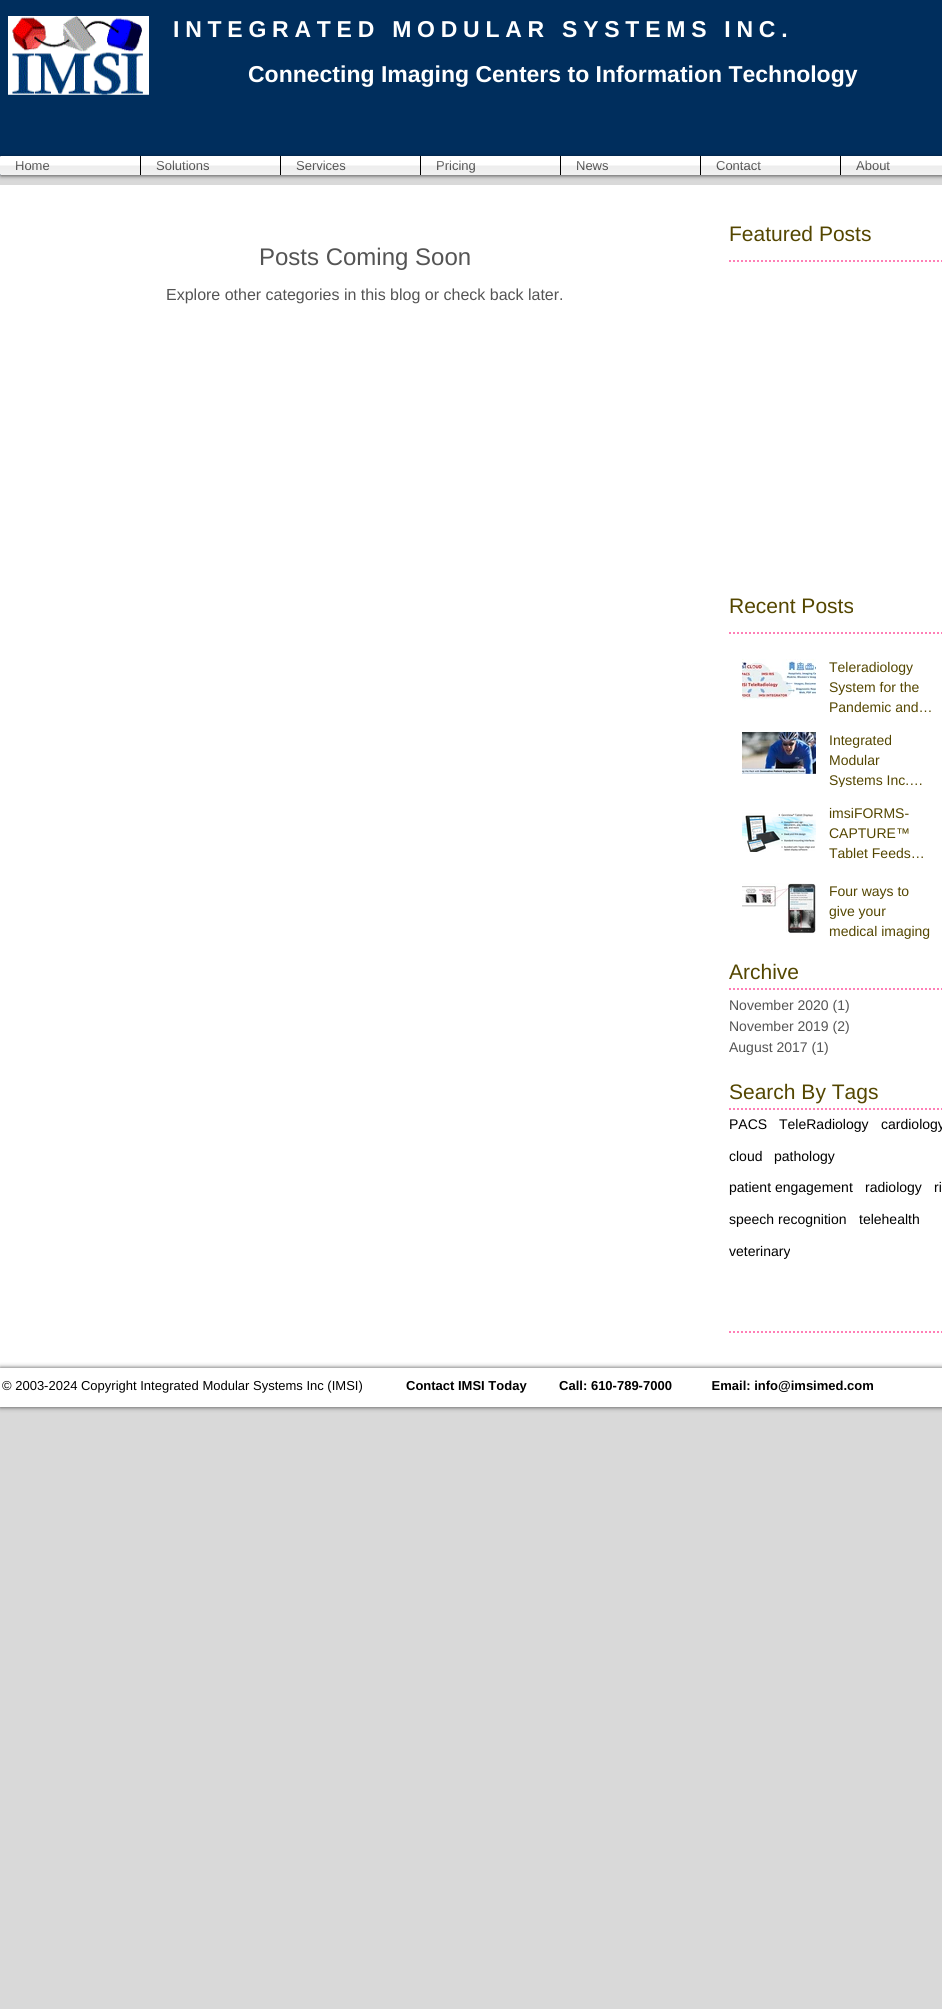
import math
import cairo


def write_spaced(ctx, x, y, s, letter, word):
	ctx.move_to(x, y)
	for ch in s:
		ctx.show_text(ch)
		ctx.rel_move_to(letter + word * (ch == ' '), 0)

def round_path(ctx, x, y, w, h, r):
	ctx.new_sub_path()
	for i, (u, v) in enumerate([(x + w - r, y + h - r), (x + r, y + h - r), (x + r, y + r), (x + w - r, y + r)]):
		ctx.arc(u, v, r, i * math.pi / 2, (i + 1) * math.pi / 2)
	ctx.close_path()

def blur_box(ctx, x, y, w, h, r, blur, alpha):
	ctx.push_group_with_content(cairo.CONTENT_ALPHA)
	ctx.set_operator(cairo.OPERATOR_SOURCE)
	for i in range(15, -16, -2):
		e = blur * i / 6
		if min(w, h) + 2 * e > 0:
			ctx.set_source_rgba(0, 0, 0, alpha * math.erfc((i - 1) / 8.5) / 2)
			round_path(ctx, x - e, y - e, w + 2 * e, h + 2 * e, max(0, min(r + e + blur * .6, min(w, h) / 2 + e)))
			ctx.fill()
	ctx.mask(ctx.pop_group())

def paste(ctx, path, x, y, w, h):
	ctx.save()
	ctx.set_source_surface(cairo.ImageSurface.create_from_png(path), x, y)
	ctx.rectangle(x, y, w, h)
	ctx.fill()
	ctx.restore()

def draw(ctx):
	ctx.set_source_rgb(0.851, 0.851, 0.851)
	ctx.paint()
	ctx.set_source_rgb(0, 0.18, 0.365)
	ctx.rectangle(0, 0, 942, 175)
	ctx.fill()
	paste(ctx, 'media/1.png', 8, 16, 141, 79)
	ctx.select_font_face('Liberation Sans', cairo.FONT_SLANT_NORMAL, cairo.FONT_WEIGHT_BOLD)
	ctx.set_font_size(23)
	ctx.set_source_rgb(1, 1, 1)
	write_spaced(ctx, 173, 37, 'INTEGRATED MODULAR SYSTEMS INC.', 5.75, 0)
	ctx.move_to(248, 82)
	ctx.show_text('Connecting Imaging Centers to Information Technology')
	ctx.set_source_rgb(0, 0, 0)
	blur_box(ctx, 0, 157, 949, 19, 1, 2, 0.6)
	paste(ctx, 'media/2.png', 0, 156, 1, 19)
	ctx.set_source_rgb(1, 1, 1)
	ctx.new_path()
	ctx.move_to(1, 156)
	ctx.line_to(140, 156)
	ctx.line_to(140, 175)
	ctx.line_to(1, 175)
	ctx.curve_to(0.5, 175, 0, 174.5, 0, 174)
	ctx.line_to(0, 157)
	ctx.curve_to(0, 156.5, 0.5, 156, 1, 156)
	ctx.close_path()
	ctx.fill()
	ctx.select_font_face('Liberation Sans')
	ctx.set_font_size(13)
	ctx.set_source_rgb(0.329, 0.329, 0.329)
	ctx.move_to(15, 170)
	ctx.show_text('Home')
	paste(ctx, 'media/3.png', 0, 161, 140, 14)
	ctx.set_source_rgb(1, 1, 1)
	ctx.rectangle(141, 156, 139, 19)
	ctx.fill()
	ctx.set_source_rgb(0, 0, 0)
	ctx.rectangle(140, 156, 1, 19)
	ctx.fill()
	ctx.set_source_rgb(0.329, 0.329, 0.329)
	ctx.move_to(156, 170)
	ctx.show_text('Solutions')
	paste(ctx, 'media/4.png', 141, 160, 139, 15)
	ctx.set_source_rgb(1, 1, 1)
	ctx.rectangle(281, 156, 139, 19)
	ctx.fill()
	ctx.set_source_rgb(0, 0, 0)
	ctx.rectangle(280, 156, 1, 19)
	ctx.fill()
	ctx.set_source_rgb(0.329, 0.329, 0.329)
	ctx.move_to(296, 170)
	ctx.show_text('Services')
	paste(ctx, 'media/5.png', 281, 160, 139, 15)
	ctx.set_source_rgb(1, 1, 1)
	ctx.rectangle(421, 156, 139, 19)
	ctx.fill()
	ctx.set_source_rgb(0, 0, 0)
	ctx.rectangle(420, 156, 1, 19)
	ctx.fill()
	ctx.set_source_rgb(0.329, 0.329, 0.329)
	ctx.move_to(436, 170)
	ctx.show_text('Pricing')
	paste(ctx, 'media/6.png', 421, 160, 139, 15)
	ctx.set_source_rgb(1, 1, 1)
	ctx.rectangle(561, 156, 139, 19)
	ctx.fill()
	ctx.set_source_rgb(0, 0, 0)
	ctx.rectangle(560, 156, 1, 19)
	ctx.fill()
	ctx.set_source_rgb(0.329, 0.329, 0.329)
	ctx.move_to(576, 170)
	ctx.show_text('News')
	paste(ctx, 'media/7.png', 561, 161, 139, 14)
	ctx.set_source_rgb(1, 1, 1)
	ctx.rectangle(701, 156, 139, 19)
	ctx.fill()
	ctx.set_source_rgb(0, 0, 0)
	ctx.rectangle(700, 156, 1, 19)
	ctx.fill()
	ctx.set_source_rgb(0.329, 0.329, 0.329)
	ctx.move_to(716, 170)
	ctx.show_text('Contact')
	paste(ctx, 'media/8.png', 701, 161, 139, 14)
	ctx.set_source_rgb(1, 1, 1)
	ctx.rectangle(841, 156, 101, 19)
	ctx.fill()
	ctx.set_source_rgb(0, 0, 0)
	ctx.rectangle(840, 156, 1, 19)
	ctx.fill()
	ctx.set_source_rgb(0.329, 0.329, 0.329)
	ctx.move_to(856, 170)
	ctx.show_text('About')
	paste(ctx, 'media/9.png', 841, 160, 101, 15)
	ctx.set_source_rgb(1, 1, 1)
	ctx.rectangle(0, 185, 942, 1183)
	ctx.fill()
	ctx.set_font_size(21)
	ctx.set_source_rgb(0.329, 0.275, 0)
	ctx.move_to(729, 241)
	ctx.show_text('Featured Posts')
	ctx.set_font_size(24)
	ctx.set_source_rgb(0.329, 0.329, 0.329)
	ctx.move_to(259, 265)
	ctx.show_text('Posts Coming Soon')
	ctx.set_font_size(16)
	ctx.move_to(166, 300)
	ctx.show_text('Explore other categories in this blog or check back later.')
	ctx.new_path()
	ctx.move_to(729, 261)
	ctx.line_to(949, 261)
	ctx.set_source_rgb(1, 0.498, 0.714)
	ctx.set_dash([2, 2])
	ctx.stroke()
	ctx.set_font_size(21)
	ctx.set_source_rgb(0.329, 0.275, 0)
	ctx.move_to(729, 613)
	ctx.show_text('Recent Posts')
	ctx.new_path()
	ctx.move_to(729, 633)
	ctx.line_to(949, 633)
	ctx.set_source_rgb(1, 0.498, 0.714)
	ctx.stroke()
	paste(ctx, 'media/10.png', 742, 659, 74, 42)
	ctx.set_font_size(14)
	ctx.set_source_rgb(0.329, 0.275, 0)
	for x, y, s in [
		(829, 672, 'Teleradiology'),
		(829, 692, 'System for the'),
		(829, 712, 'Pandemic and…'),
	]:
		ctx.move_to(x, y)
		ctx.show_text(s)
	paste(ctx, 'media/11.png', 742, 732, 74, 42)
	ctx.move_to(829, 745)
	ctx.show_text('Integrated')
	ctx.move_to(829, 765)
	ctx.show_text('Modular')
	ctx.save()
	ctx.rectangle(829, 731, 108, 56)
	ctx.clip()
	ctx.move_to(829, 785)
	ctx.show_text('Systems Inc.…')
	ctx.restore()
	paste(ctx, 'media/12.png', 742, 807, 74, 45)
	for x, y, s in [
		(829, 818, 'imsiFORMS-'),
		(829, 838, 'CAPTURE™'),
		(829, 858, 'Tablet Feeds…'),
	]:
		ctx.move_to(x, y)
		ctx.show_text(s)
	paste(ctx, 'media/13.png', 742, 883, 74, 51)
	for x, y, s in [
		(829, 896, 'Four ways to'),
		(829, 916, 'give your'),
		(829, 936, 'medical imaging'),
	]:
		ctx.move_to(x, y)
		ctx.show_text(s)
	ctx.set_font_size(21)
	ctx.move_to(729, 979)
	ctx.show_text('Archive')
	ctx.new_path()
	ctx.move_to(729, 989)
	ctx.line_to(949, 989)
	ctx.set_source_rgb(1, 0.498, 0.714)
	ctx.stroke()
	ctx.set_font_size(14)
	ctx.set_source_rgb(0.329, 0.329, 0.329)
	for x, y, s in [
		(729, 1010, 'November 2020 (1)'),
		(729, 1031, 'November 2019 (2)'),
		(729, 1052, 'August 2017 (1)'),
	]:
		ctx.move_to(x, y)
		ctx.show_text(s)
	ctx.set_font_size(21)
	ctx.set_source_rgb(0.329, 0.275, 0)
	ctx.move_to(729, 1099)
	ctx.show_text('Search By Tags')
	ctx.new_path()
	ctx.move_to(729, 1109)
	ctx.line_to(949, 1109)
	ctx.set_source_rgb(1, 0.498, 0.714)
	ctx.stroke()
	ctx.set_font_size(14)
	ctx.set_source_rgb(0, 0, 0)
	for x, y, s in [
		(729, 1129, 'PACS'),
		(779, 1129, 'TeleRadiology'),
		(881, 1129, 'cardiology'),
		(729, 1161, 'cloud'),
		(774, 1161, 'pathology'),
		(729, 1192, 'patient engagement'),
		(865, 1192, 'radiology'),
		(934, 1192, 'ri'),
		(729, 1224, 'speech recognition'),
		(859, 1224, 'telehealth'),
		(729, 1256, 'veterinary'),
	]:
		ctx.move_to(x, y)
		ctx.show_text(s)
	ctx.new_path()
	ctx.move_to(729, 1332)
	ctx.line_to(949, 1332)
	ctx.set_source_rgb(1, 0.498, 0.714)
	ctx.stroke()
	ctx.set_source_rgb(0, 0, 0)
	blur_box(ctx, 0, 1368, 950, 39, 0, 2.5, 0.7)
	ctx.set_source_rgb(1, 1, 1)
	ctx.rectangle(0, 1368, 942, 39)
	ctx.fill()
	ctx.set_font_size(13)
	ctx.set_source_rgb(0, 0, 0)
	ctx.move_to(2, 1390)
	ctx.show_text('© 2003-2024 Copyright Integrated Modular Systems Inc (IMSI)')
	ctx.select_font_face('Liberation Sans', cairo.FONT_SLANT_NORMAL, cairo.FONT_WEIGHT_BOLD)
	ctx.move_to(406, 1390)
	ctx.show_text('Contact IMSI Today         Call: 610-789-7000           Email: info@imsimed.com')


surface = cairo.ImageSurface(cairo.FORMAT_RGB24, 942, 2009)
ctx = cairo.Context(surface)
options = cairo.FontOptions()
options.set_hint_metrics(cairo.HINT_METRICS_OFF)
options.set_hint_style(cairo.HINT_STYLE_NONE)
ctx.set_font_options(options)
ctx.set_miter_limit(4)
draw(ctx)
surface.write_to_png('image.png')
